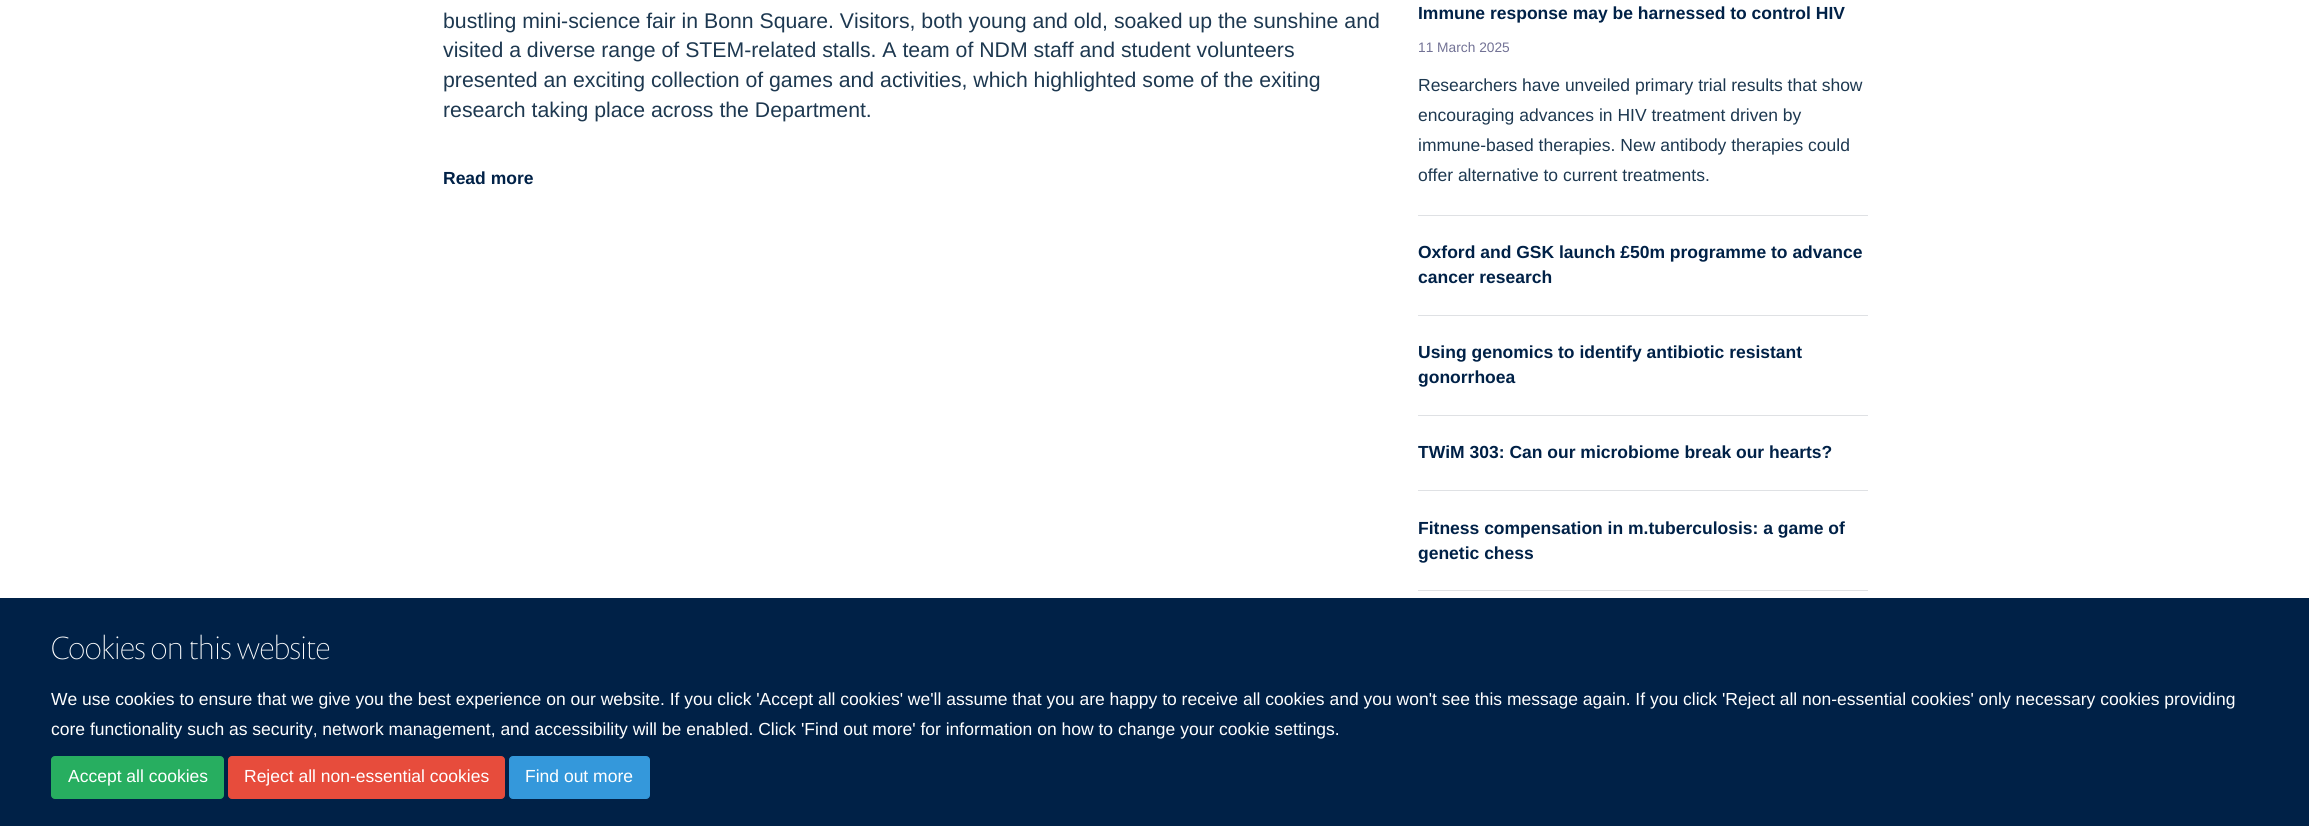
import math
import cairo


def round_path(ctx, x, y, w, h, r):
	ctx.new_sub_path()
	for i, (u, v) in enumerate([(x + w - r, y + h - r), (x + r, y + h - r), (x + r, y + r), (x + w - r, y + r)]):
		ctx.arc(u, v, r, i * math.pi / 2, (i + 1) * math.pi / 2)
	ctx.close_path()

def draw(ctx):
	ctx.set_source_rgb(1, 1, 1)
	ctx.paint()
	ctx.select_font_face('Liberation Sans')
	ctx.set_font_size(21.25)
	ctx.set_source_rgb(0.114, 0.22, 0.314)
	for x, y, s in [
		(443, 28, 'bustling mini-science fair in Bonn Square. Visitors, both young and old, soaked up the sunshine and'),
		(443, 57, 'visited a diverse range of STEM-related stalls. A team of NDM staff and student volunteers'),
		(443, 87, 'presented an exciting collection of games and activities, which highlighted some of the exiting'),
		(443, 117, 'research taking place across the Department.'),
	]:
		ctx.move_to(x, y)
		ctx.show_text(s)
	ctx.select_font_face('Liberation Sans', cairo.FONT_SLANT_NORMAL, cairo.FONT_WEIGHT_BOLD)
	ctx.set_font_size(17.5)
	ctx.set_source_rgb(0, 0.129, 0.278)
	ctx.move_to(443, 184)
	ctx.show_text('Read more')
	ctx.set_source_rgb(0.875, 0.882, 0.894)
	ctx.rectangle(1418, 215, 450, 1)
	ctx.fill()
	ctx.set_source_rgb(0, 0.129, 0.278)
	ctx.move_to(1418, 19)
	ctx.show_text('Immune response may be harnessed to control HIV')
	ctx.select_font_face('Liberation Sans')
	ctx.set_font_size(13.75)
	ctx.set_source_rgb(0.447, 0.447, 0.584)
	ctx.move_to(1418, 52)
	ctx.show_text('11 March 2025')
	ctx.set_font_size(17.5)
	ctx.set_source_rgb(0.114, 0.22, 0.314)
	for x, y, s in [
		(1418, 91, 'Researchers have unveiled primary trial results that show'),
		(1418, 121, 'encouraging advances in HIV treatment driven by'),
		(1418, 151, 'immune-based therapies. New antibody therapies could'),
		(1418, 181, 'offer alternative to current treatments.'),
	]:
		ctx.move_to(x, y)
		ctx.show_text(s)
	ctx.set_source_rgb(0.875, 0.882, 0.894)
	ctx.rectangle(1418, 315, 450, 1)
	ctx.fill()
	ctx.select_font_face('Liberation Sans', cairo.FONT_SLANT_NORMAL, cairo.FONT_WEIGHT_BOLD)
	ctx.set_source_rgb(0, 0.129, 0.278)
	ctx.move_to(1418, 258)
	ctx.show_text('Oxford and GSK launch £50m programme to advance')
	ctx.move_to(1418, 283)
	ctx.show_text('cancer research')
	ctx.set_source_rgb(0.875, 0.882, 0.894)
	ctx.rectangle(1418, 415, 450, 1)
	ctx.fill()
	ctx.set_source_rgb(0, 0.129, 0.278)
	ctx.move_to(1418, 358)
	ctx.show_text('Using genomics to identify antibiotic resistant')
	ctx.move_to(1418, 383)
	ctx.show_text('gonorrhoea')
	ctx.set_source_rgb(0.875, 0.882, 0.894)
	ctx.rectangle(1418, 490, 450, 1)
	ctx.fill()
	ctx.set_source_rgb(0, 0.129, 0.278)
	ctx.move_to(1418, 458)
	ctx.show_text('TWiM 303: Can our microbiome break our hearts?')
	ctx.set_source_rgb(0.875, 0.882, 0.894)
	ctx.rectangle(1418, 590, 450, 1)
	ctx.fill()
	ctx.set_source_rgb(0, 0.129, 0.278)
	ctx.move_to(1418, 534)
	ctx.show_text('Fitness compensation in m.tuberculosis: a game of')
	ctx.move_to(1418, 559)
	ctx.show_text('genetic chess')
	ctx.rectangle(0, 598, 2309, 228)
	ctx.fill()
	ctx.select_font_face('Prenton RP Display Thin')
	ctx.set_font_size(32.5)
	ctx.set_source_rgb(1, 1, 1)
	ctx.move_to(51, 659)
	ctx.show_text('Cookies on this website')
	ctx.select_font_face('Liberation Sans')
	ctx.set_font_size(17.5)
	ctx.move_to(51, 705)
	ctx.show_text('We use cookies to ensure that we give you the best experience on our website. If you click \'Accept all cookies\' we\'ll assume that you are happy to receive all cookies and you won\'t see this message again. If you click \'Reject all non-essential cookies\' only necessary cookies providing')
	ctx.move_to(51, 735)
	ctx.show_text('core functionality such as security, network management, and accessibility will be enabled. Click \'Find out more\' for information on how to change your cookie settings.')
	ctx.set_source_rgb(0.153, 0.682, 0.376)
	round_path(ctx, 51.5, 756.5, 172, 42, 3.5)
	ctx.fill_preserve()
	ctx.set_line_width(1)
	ctx.stroke()
	ctx.set_source_rgb(1, 1, 1)
	ctx.move_to(68, 782)
	ctx.show_text('Accept all cookies')
	ctx.set_source_rgb(0.906, 0.298, 0.235)
	round_path(ctx, 228.5, 756.5, 276, 42, 3.5)
	ctx.fill_preserve()
	ctx.stroke()
	ctx.set_source_rgb(1, 1, 1)
	ctx.move_to(244, 782)
	ctx.show_text('Reject all non-essential cookies')
	ctx.set_source_rgb(0.204, 0.596, 0.859)
	round_path(ctx, 509.5, 756.5, 140, 42, 3.5)
	ctx.fill_preserve()
	ctx.stroke()
	ctx.set_source_rgb(1, 1, 1)
	ctx.move_to(525, 782)
	ctx.show_text('Find out more')


surface = cairo.ImageSurface(cairo.FORMAT_RGB24, 2309, 826)
ctx = cairo.Context(surface)
options = cairo.FontOptions()
options.set_hint_metrics(cairo.HINT_METRICS_OFF)
options.set_hint_style(cairo.HINT_STYLE_NONE)
ctx.set_font_options(options)
ctx.set_miter_limit(4)
draw(ctx)
surface.write_to_png('image.png')
